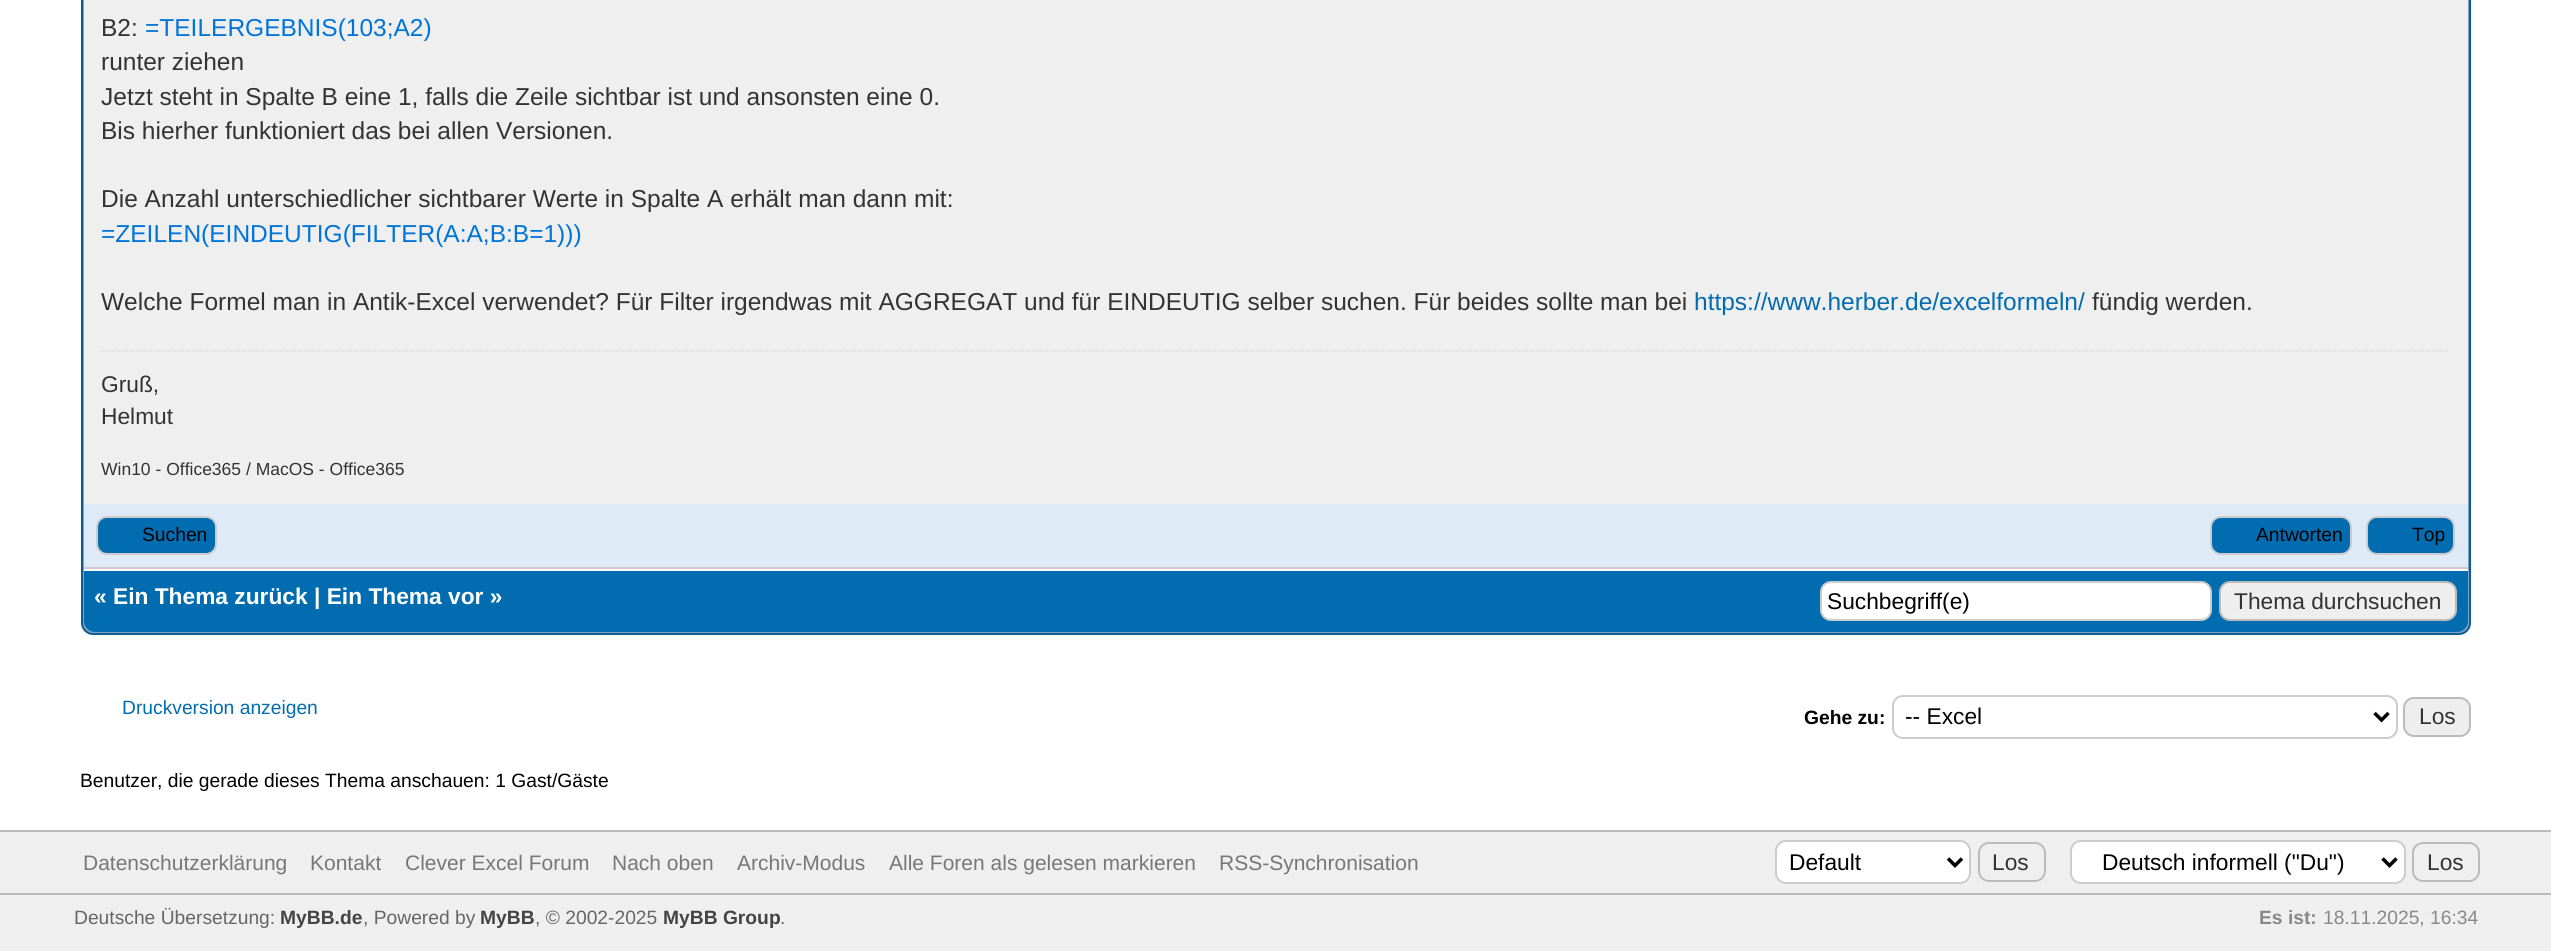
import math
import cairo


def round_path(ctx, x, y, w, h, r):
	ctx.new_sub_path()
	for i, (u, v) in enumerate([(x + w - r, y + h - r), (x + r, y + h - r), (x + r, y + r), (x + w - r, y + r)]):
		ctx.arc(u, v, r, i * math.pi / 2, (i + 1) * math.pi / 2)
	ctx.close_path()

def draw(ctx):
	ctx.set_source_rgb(0.937, 0.937, 0.937)
	ctx.paint()
	ctx.set_source_rgb(1, 1, 1)
	ctx.rectangle(0, 0, 2551, 830)
	ctx.fill()
	ctx.set_source_rgb(0.506, 0.635, 0.769)
	round_path(ctx, 82, -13, 2388, 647, 11)
	ctx.fill_preserve()
	ctx.set_source_rgb(0.059, 0.361, 0.557)
	ctx.stroke()
	ctx.set_source_rgb(0.937, 0.937, 0.937)
	ctx.rectangle(84, 0, 2384, 504)
	ctx.fill()
	ctx.select_font_face('Liberation Sans')
	ctx.set_font_size(24.5)
	ctx.set_source_rgb(0.2, 0.2, 0.2)
	ctx.move_to(101, 36)
	ctx.show_text('B2:')
	ctx.set_source_rgb(0, 0.455, 0.851)
	ctx.move_to(145, 36)
	ctx.show_text('=TEILERGEBNIS(103;A2)')
	ctx.set_source_rgb(0.2, 0.2, 0.2)
	for x, y, s in [
		(101, 70, 'runter ziehen'),
		(101, 105, 'Jetzt steht in Spalte B eine 1, falls die Zeile sichtbar ist und ansonsten eine 0.'),
		(101, 139, 'Bis hierher funktioniert das bei allen Versionen.'),
		(101, 207, 'Die Anzahl unterschiedlicher sichtbarer Werte in Spalte A erhält man dann mit:'),
	]:
		ctx.move_to(x, y)
		ctx.show_text(s)
	ctx.set_source_rgb(0, 0.455, 0.851)
	ctx.move_to(101, 242)
	ctx.show_text('=ZEILEN(EINDEUTIG(FILTER(A:A;B:B=1)))')
	ctx.set_source_rgb(0.2, 0.2, 0.2)
	ctx.move_to(101, 310)
	ctx.show_text('Welche Formel man in Antik-Excel verwendet? Für Filter irgendwas mit AGGREGAT und für EINDEUTIG selber suchen. Für beides sollte man bei')
	ctx.set_source_rgb(0.008, 0.424, 0.694)
	ctx.move_to(1694, 310)
	ctx.show_text('https://www.herber.de/excelformeln/')
	ctx.set_source_rgb(0.2, 0.2, 0.2)
	ctx.move_to(2092, 310)
	ctx.show_text('fündig werden.')
	ctx.new_path()
	ctx.move_to(101.5, 351)
	ctx.line_to(2450, 351)
	ctx.set_source_rgb(0.867, 0.867, 0.867)
	ctx.set_line_width(1.8)
	ctx.set_dash([1.75, 1.75])
	ctx.stroke()
	ctx.set_font_size(22.75)
	ctx.set_source_rgb(0.2, 0.2, 0.2)
	ctx.move_to(101, 392)
	ctx.show_text('Gruß,')
	ctx.move_to(101, 424)
	ctx.show_text('Helmut')
	ctx.set_font_size(17.5)
	ctx.move_to(101, 475)
	ctx.show_text('Win10 - Office365 / MacOS - Office365')
	ctx.set_source_rgb(0.871, 0.918, 0.961)
	ctx.rectangle(84, 504, 2384, 63)
	ctx.fill()
	ctx.set_source_rgb(0.8, 0.8, 0.8)
	ctx.rectangle(84, 567, 2384, 2)
	ctx.fill()
	ctx.set_source_rgb(0.008, 0.424, 0.694)
	round_path(ctx, 97, 517, 119, 37, 10)
	ctx.fill_preserve()
	ctx.set_source_rgb(0.8, 0.8, 0.8)
	ctx.set_line_width(2)
	ctx.set_dash([])
	ctx.stroke()
	ctx.set_font_size(19.25)
	ctx.set_source_rgb(0, 0, 0)
	ctx.move_to(142, 541)
	ctx.show_text('Suchen')
	ctx.set_source_rgb(0.008, 0.424, 0.694)
	round_path(ctx, 2211, 517, 140, 37, 10)
	ctx.fill_preserve()
	ctx.set_source_rgb(0.8, 0.8, 0.8)
	ctx.stroke()
	ctx.set_source_rgb(0, 0, 0)
	ctx.move_to(2256, 541)
	ctx.show_text('Antworten')
	ctx.set_source_rgb(0.008, 0.424, 0.694)
	round_path(ctx, 2367, 517, 87, 37, 10)
	ctx.fill_preserve()
	ctx.set_source_rgb(0.8, 0.8, 0.8)
	ctx.stroke()
	ctx.set_source_rgb(0, 0, 0)
	ctx.move_to(2412, 541)
	ctx.show_text('Top')
	ctx.set_source_rgb(0.008, 0.424, 0.694)
	ctx.new_path()
	ctx.move_to(84, 569)
	ctx.line_to(2468, 569)
	ctx.line_to(2468, 621)
	ctx.curve_to(2468, 627, 2463, 632, 2457, 632)
	ctx.line_to(95, 632)
	ctx.curve_to(89, 632, 84, 627, 84, 621)
	ctx.close_path()
	ctx.fill()
	ctx.set_source_rgb(1, 1, 1)
	ctx.rectangle(84, 569, 2384, 2)
	ctx.fill()
	ctx.select_font_face('Liberation Sans', cairo.FONT_SLANT_NORMAL, cairo.FONT_WEIGHT_BOLD)
	ctx.set_font_size(22.75)
	ctx.move_to(94, 604)
	ctx.show_text('« Ein Thema zurück | Ein Thema vor »')
	round_path(ctx, 1821, 582, 390, 38, 10)
	ctx.fill_preserve()
	ctx.set_source_rgb(0.8, 0.8, 0.8)
	ctx.stroke()
	ctx.select_font_face('Liberation Sans')
	ctx.set_source_rgb(0, 0, 0)
	ctx.move_to(1827, 609)
	ctx.show_text('Suchbegriff(e)')
	ctx.set_source_rgb(0.933, 0.933, 0.933)
	round_path(ctx, 2220, 582, 236, 38, 10)
	ctx.fill_preserve()
	ctx.set_source_rgb(0.733, 0.733, 0.733)
	ctx.stroke()
	ctx.set_source_rgb(0.2, 0.2, 0.2)
	ctx.move_to(2234, 609)
	ctx.show_text('Thema durchsuchen')
	ctx.set_font_size(19.25)
	ctx.set_source_rgb(0.008, 0.424, 0.694)
	ctx.move_to(122, 714)
	ctx.show_text('Druckversion anzeigen')
	ctx.select_font_face('Liberation Sans', cairo.FONT_SLANT_NORMAL, cairo.FONT_WEIGHT_BOLD)
	ctx.set_source_rgb(0, 0, 0)
	ctx.move_to(1804, 724)
	ctx.show_text('Gehe zu:')
	round_path(ctx, 1893, 696, 504, 42, 10)
	ctx.set_source_rgb(0.8, 0.8, 0.8)
	ctx.stroke()
	ctx.new_path()
	ctx.move_to(2374.5, 713)
	ctx.line_to(2381.5, 720)
	ctx.line_to(2388.5, 713)
	ctx.set_source_rgb(0, 0, 0)
	ctx.set_line_width(3.5)
	ctx.stroke()
	ctx.select_font_face('Liberation Sans')
	ctx.set_font_size(22.75)
	ctx.move_to(1905, 724)
	ctx.show_text('-- Excel')
	ctx.set_source_rgb(0.933, 0.933, 0.933)
	round_path(ctx, 2404, 698, 66, 38, 10)
	ctx.fill_preserve()
	ctx.set_source_rgb(0.733, 0.733, 0.733)
	ctx.set_line_width(2)
	ctx.stroke()
	ctx.set_source_rgb(0.2, 0.2, 0.2)
	ctx.move_to(2419, 724)
	ctx.show_text('Los')
	ctx.set_font_size(19.25)
	ctx.set_source_rgb(0, 0, 0)
	ctx.move_to(80, 787)
	ctx.show_text('Benutzer, die gerade dieses Thema anschauen: 1 Gast/Gäste')
	ctx.set_source_rgb(0.733, 0.733, 0.733)
	ctx.rectangle(0, 830, 2551, 2)
	ctx.fill()
	ctx.rectangle(0, 893, 2551, 2)
	ctx.fill()
	ctx.set_font_size(21)
	ctx.set_source_rgb(0.467, 0.467, 0.467)
	for x, y, s in [
		(83, 870, 'Datenschutzerklärung'),
		(310, 870, 'Kontakt'),
		(405, 870, 'Clever Excel Forum'),
		(612, 870, 'Nach oben'),
		(737, 870, 'Archiv-Modus'),
		(889, 870, 'Alle Foren als gelesen markieren'),
		(1219, 870, 'RSS-Synchronisation'),
	]:
		ctx.move_to(x, y)
		ctx.show_text(s)
	ctx.set_source_rgb(1, 1, 1)
	round_path(ctx, 1776, 841, 194, 42, 10)
	ctx.fill_preserve()
	ctx.set_source_rgb(0.8, 0.8, 0.8)
	ctx.stroke()
	ctx.new_path()
	ctx.move_to(1948, 858.5)
	ctx.line_to(1955, 865.5)
	ctx.line_to(1962, 858.5)
	ctx.set_source_rgb(0, 0, 0)
	ctx.set_line_width(3.5)
	ctx.stroke()
	ctx.set_font_size(22.75)
	ctx.move_to(1789, 870)
	ctx.show_text('Default')
	round_path(ctx, 1979, 843, 66, 38, 10)
	ctx.set_source_rgb(0.733, 0.733, 0.733)
	ctx.set_line_width(2)
	ctx.stroke()
	ctx.set_source_rgb(0.2, 0.2, 0.2)
	ctx.move_to(1992, 870)
	ctx.show_text('Los')
	ctx.set_source_rgb(1, 1, 1)
	round_path(ctx, 2071, 841, 334, 42, 10)
	ctx.fill_preserve()
	ctx.set_source_rgb(0.8, 0.8, 0.8)
	ctx.stroke()
	ctx.new_path()
	ctx.move_to(2382.5, 858.5)
	ctx.line_to(2389.5, 865.5)
	ctx.line_to(2396.5, 858.5)
	ctx.set_source_rgb(0, 0, 0)
	ctx.set_line_width(3.5)
	ctx.stroke()
	ctx.move_to(2102, 870)
	ctx.show_text('Deutsch informell ("Du")')
	round_path(ctx, 2413, 843, 66, 38, 10)
	ctx.set_source_rgb(0.733, 0.733, 0.733)
	ctx.set_line_width(2)
	ctx.stroke()
	ctx.set_source_rgb(0.2, 0.2, 0.2)
	ctx.move_to(2427, 870)
	ctx.show_text('Los')
	ctx.set_font_size(19.25)
	ctx.set_source_rgb(0.4, 0.4, 0.4)
	ctx.move_to(74, 924)
	ctx.show_text('Deutsche Übersetzung:')
	ctx.select_font_face('Liberation Sans', cairo.FONT_SLANT_NORMAL, cairo.FONT_WEIGHT_BOLD)
	ctx.set_source_rgb(0.267, 0.267, 0.267)
	ctx.move_to(280, 924)
	ctx.show_text('MyBB.de')
	ctx.select_font_face('Liberation Sans')
	ctx.set_source_rgb(0.4, 0.4, 0.4)
	ctx.move_to(363, 924)
	ctx.show_text(', Powered by')
	ctx.select_font_face('Liberation Sans', cairo.FONT_SLANT_NORMAL, cairo.FONT_WEIGHT_BOLD)
	ctx.set_source_rgb(0.267, 0.267, 0.267)
	ctx.move_to(480, 924)
	ctx.show_text('MyBB')
	ctx.select_font_face('Liberation Sans')
	ctx.set_source_rgb(0.4, 0.4, 0.4)
	ctx.move_to(535, 924)
	ctx.show_text(', © 2002-2025')
	ctx.select_font_face('Liberation Sans', cairo.FONT_SLANT_NORMAL, cairo.FONT_WEIGHT_BOLD)
	ctx.set_source_rgb(0.267, 0.267, 0.267)
	ctx.move_to(663, 924)
	ctx.show_text('MyBB Group')
	ctx.select_font_face('Liberation Sans')
	ctx.set_source_rgb(0.4, 0.4, 0.4)
	ctx.move_to(780, 924)
	ctx.show_text('.')
	ctx.select_font_face('Liberation Sans', cairo.FONT_SLANT_NORMAL, cairo.FONT_WEIGHT_BOLD)
	ctx.set_source_rgb(0.533, 0.533, 0.533)
	ctx.move_to(2259, 924)
	ctx.show_text('Es ist:')
	ctx.select_font_face('Liberation Sans')
	ctx.move_to(2323, 924)
	ctx.show_text('18.11.2025, 16:34')


surface = cairo.ImageSurface(cairo.FORMAT_RGB24, 2551, 951)
ctx = cairo.Context(surface)
options = cairo.FontOptions()
options.set_hint_metrics(cairo.HINT_METRICS_OFF)
options.set_hint_style(cairo.HINT_STYLE_NONE)
ctx.set_font_options(options)
ctx.set_miter_limit(4)
draw(ctx)
surface.write_to_png('image.png')
